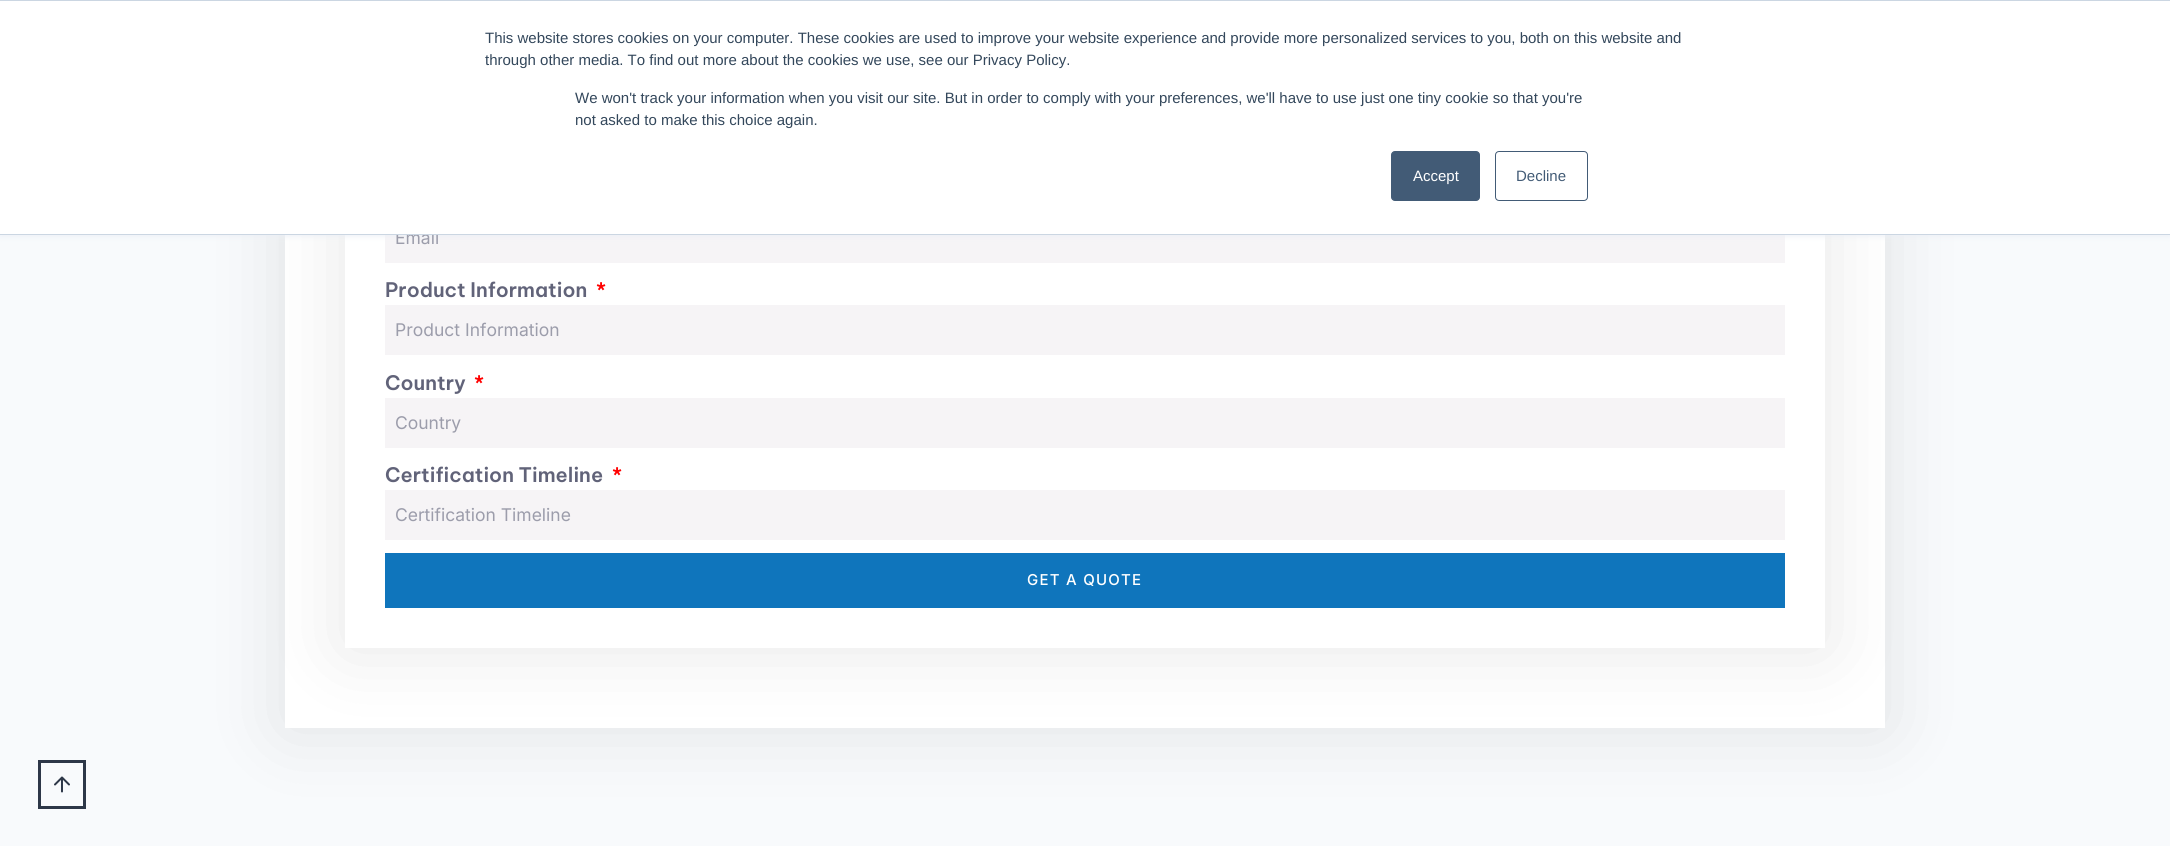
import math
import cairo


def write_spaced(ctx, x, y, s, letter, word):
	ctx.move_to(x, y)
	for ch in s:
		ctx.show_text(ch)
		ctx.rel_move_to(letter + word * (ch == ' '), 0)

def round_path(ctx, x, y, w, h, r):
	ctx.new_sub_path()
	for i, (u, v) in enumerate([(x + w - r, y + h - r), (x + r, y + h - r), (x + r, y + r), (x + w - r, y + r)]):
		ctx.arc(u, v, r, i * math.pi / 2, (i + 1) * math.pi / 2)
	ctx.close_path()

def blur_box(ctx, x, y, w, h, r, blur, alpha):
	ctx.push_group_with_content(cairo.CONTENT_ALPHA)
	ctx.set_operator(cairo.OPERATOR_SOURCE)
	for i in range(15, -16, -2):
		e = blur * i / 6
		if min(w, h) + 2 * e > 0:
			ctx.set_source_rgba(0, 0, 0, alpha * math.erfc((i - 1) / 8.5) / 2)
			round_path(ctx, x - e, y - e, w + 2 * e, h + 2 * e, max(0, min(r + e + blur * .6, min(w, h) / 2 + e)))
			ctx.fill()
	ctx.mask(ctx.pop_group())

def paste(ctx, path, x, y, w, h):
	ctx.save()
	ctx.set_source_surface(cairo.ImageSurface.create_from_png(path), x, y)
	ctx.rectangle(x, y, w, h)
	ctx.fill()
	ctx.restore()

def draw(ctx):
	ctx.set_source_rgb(0.969, 0.98, 0.988)
	ctx.paint()
	ctx.set_source_rgb(0, 0, 0)
	blur_box(ctx, 285, -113, 1600, 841, 0, 37.5, 0.1)
	ctx.set_source_rgb(1, 1, 1)
	ctx.rectangle(285, 235, 1600, 493)
	ctx.fill()
	ctx.set_source_rgb(0, 0, 0)
	blur_box(ctx, 345, -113, 1480, 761, 0, 37.5, 0.1)
	ctx.set_source_rgb(1, 1, 1)
	ctx.rectangle(345, 235, 1480, 413)
	ctx.fill()
	ctx.set_source_rgb(0.961, 0.957, 0.961)
	ctx.rectangle(385, 235, 1400, 28)
	ctx.fill()
	ctx.set_source_rgb(0.918, 0.941, 0.965)
	blur_box(ctx, 0, 1, 2170, 235, 0, 3, 1)
	ctx.select_font_face('Inter')
	ctx.set_font_size(17.5)
	ctx.set_source_rgb(0.612, 0.616, 0.671)
	ctx.move_to(395, 244)
	ctx.show_text('Email')
	ctx.set_source_rgb(1, 1, 1)
	ctx.rectangle(0, 1, 2170, 233)
	ctx.fill()
	ctx.set_source_rgb(0.796, 0.839, 0.886)
	ctx.rectangle(0, 0, 2170, 1)
	ctx.rectangle(0, 234, 2170, 1)
	ctx.fill()
	ctx.select_font_face('Liberation Sans')
	ctx.set_font_size(15)
	ctx.set_source_rgb(0.2, 0.278, 0.357)
	for x, y, s in [
		(485, 43, 'This website stores cookies on your computer. These cookies are used to improve your website experience and provide more personalized services to you, both on this website and'),
		(485, 65, 'through other media. To find out more about the cookies we use, see our Privacy Policy.'),
		(575, 103, 'We won\'t track your information when you visit our site. But in order to comply with your preferences, we\'ll have to use just one tiny cookie so that you\'re'),
		(575, 125, 'not asked to make this choice again.'),
	]:
		ctx.move_to(x, y)
		ctx.show_text(s)
	ctx.set_source_rgb(0.259, 0.357, 0.463)
	round_path(ctx, 1391.5, 151.5, 88, 49, 3.5)
	ctx.fill_preserve()
	ctx.set_line_width(1)
	ctx.stroke()
	ctx.set_source_rgb(1, 1, 1)
	ctx.move_to(1413, 181)
	ctx.show_text('Accept')
	round_path(ctx, 1495.5, 151.5, 92, 49, 3.5)
	ctx.set_source_rgb(0.259, 0.357, 0.463)
	ctx.stroke()
	ctx.move_to(1516, 181)
	ctx.show_text('Decline')
	ctx.select_font_face('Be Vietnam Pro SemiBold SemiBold')
	ctx.set_font_size(20)
	ctx.set_source_rgb(0.38, 0.388, 0.475)
	ctx.move_to(385, 297)
	ctx.show_text('Product Information')
	ctx.set_source_rgb(1, 0, 0)
	ctx.move_to(596, 297)
	ctx.show_text('*')
	ctx.set_source_rgb(0.961, 0.957, 0.961)
	ctx.rectangle(385, 305, 1400, 50)
	ctx.fill()
	ctx.select_font_face('Inter')
	ctx.set_font_size(17.5)
	ctx.set_source_rgb(0.612, 0.616, 0.671)
	ctx.move_to(395, 336)
	ctx.show_text('Product Information')
	ctx.select_font_face('Be Vietnam Pro SemiBold SemiBold')
	ctx.set_font_size(20)
	ctx.set_source_rgb(0.38, 0.388, 0.475)
	ctx.move_to(385, 390)
	ctx.show_text('Country')
	ctx.set_source_rgb(1, 0, 0)
	ctx.move_to(474, 390)
	ctx.show_text('*')
	ctx.set_source_rgb(0.961, 0.957, 0.961)
	ctx.rectangle(385, 398, 1400, 50)
	ctx.fill()
	ctx.select_font_face('Inter')
	ctx.set_font_size(17.5)
	ctx.set_source_rgb(0.612, 0.616, 0.671)
	ctx.move_to(395, 429)
	ctx.show_text('Country')
	ctx.select_font_face('Be Vietnam Pro SemiBold SemiBold')
	ctx.set_font_size(20)
	ctx.set_source_rgb(0.38, 0.388, 0.475)
	ctx.move_to(385, 482)
	ctx.show_text('Certification Timeline')
	ctx.set_source_rgb(1, 0, 0)
	ctx.move_to(612, 482)
	ctx.show_text('*')
	ctx.set_source_rgb(0.961, 0.957, 0.961)
	ctx.rectangle(385, 490, 1400, 50)
	ctx.fill()
	ctx.select_font_face('Inter')
	ctx.set_font_size(17.5)
	ctx.set_source_rgb(0.612, 0.616, 0.671)
	ctx.move_to(395, 521)
	ctx.show_text('Certification Timeline')
	ctx.set_source_rgb(0.059, 0.459, 0.737)
	ctx.rectangle(385, 553, 1400, 55)
	ctx.fill()
	ctx.select_font_face('Inter Medium')
	ctx.set_font_size(15)
	ctx.set_source_rgb(1, 1, 1)
	write_spaced(ctx, 1027, 585, 'GET A QUOTE', 1.25, 0)
	ctx.rectangle(39.5, 761.5, 45, 46)
	ctx.set_source_rgb(0.176, 0.216, 0.282)
	ctx.set_line_width(3)
	ctx.stroke()
	paste(ctx, 'media/1.png', 54, 776, 16, 17)


surface = cairo.ImageSurface(cairo.FORMAT_RGB24, 2170, 846)
ctx = cairo.Context(surface)
options = cairo.FontOptions()
options.set_hint_metrics(cairo.HINT_METRICS_OFF)
options.set_hint_style(cairo.HINT_STYLE_NONE)
ctx.set_font_options(options)
ctx.set_miter_limit(4)
draw(ctx)
surface.write_to_png('image.png')
